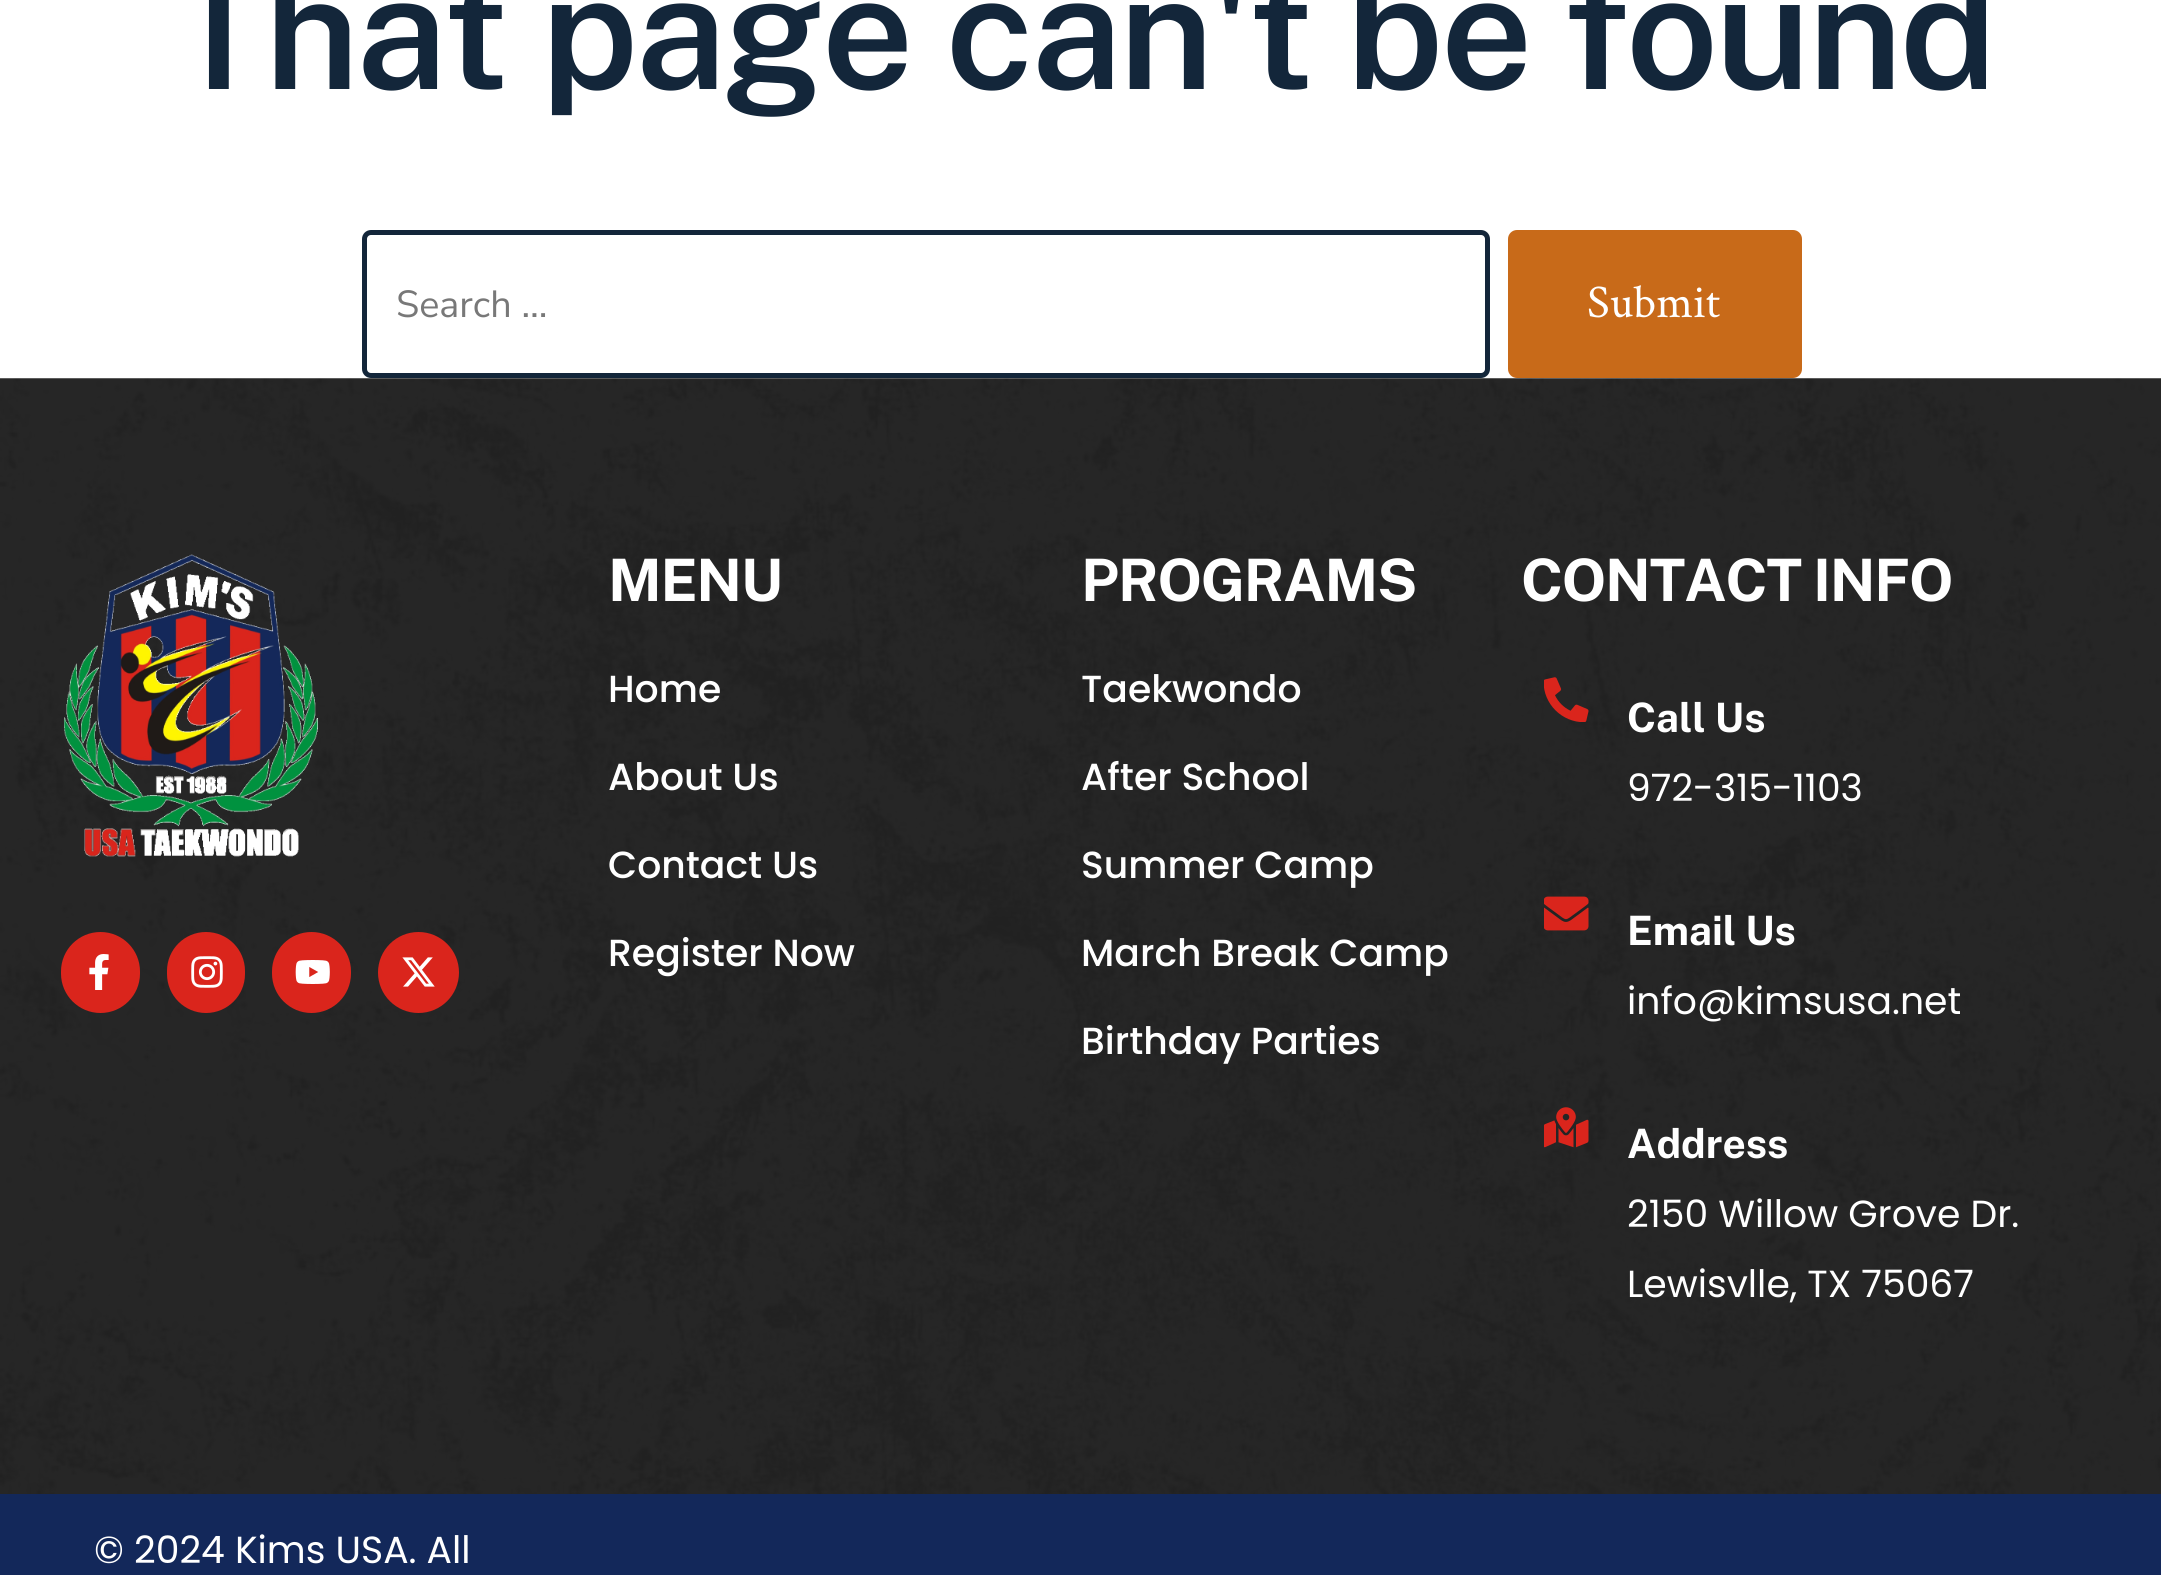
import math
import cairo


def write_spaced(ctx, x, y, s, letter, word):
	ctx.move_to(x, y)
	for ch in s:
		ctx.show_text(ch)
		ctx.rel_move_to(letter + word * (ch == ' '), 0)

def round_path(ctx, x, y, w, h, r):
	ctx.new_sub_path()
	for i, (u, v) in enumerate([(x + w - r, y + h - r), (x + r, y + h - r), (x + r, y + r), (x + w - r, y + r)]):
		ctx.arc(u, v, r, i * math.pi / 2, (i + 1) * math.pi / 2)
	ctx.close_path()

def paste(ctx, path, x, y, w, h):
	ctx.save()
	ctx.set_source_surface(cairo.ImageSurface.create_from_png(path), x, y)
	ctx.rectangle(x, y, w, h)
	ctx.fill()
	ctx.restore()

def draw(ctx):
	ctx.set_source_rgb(1, 1, 1)
	ctx.paint()
	ctx.select_font_face('Public Sans SemiBold')
	ctx.set_font_size(162.4)
	ctx.set_source_rgb(0.075, 0.149, 0.227)
	write_spaced(ctx, 169, 89, 'That page can\'t be found', -3.25, 0)
	round_path(ctx, 364.5, 232.5, 1123, 143, 6.5)
	ctx.set_line_width(5)
	ctx.stroke()
	ctx.select_font_face('Nunito Sans')
	ctx.set_font_size(37.75)
	ctx.set_source_rgb(0.471, 0.471, 0.471)
	ctx.move_to(396, 317)
	ctx.show_text('Search …')
	ctx.set_source_rgb(0.784, 0.416, 0.098)
	round_path(ctx, 1508, 230, 294, 148, 9)
	ctx.fill()
	ctx.select_font_face('Crimson Text')
	ctx.set_font_size(47)
	ctx.set_source_rgb(1, 1, 1)
	ctx.move_to(1587, 317)
	ctx.show_text('Submit')
	paste(ctx, 'media/1.png', 0, 378, 2161, 1116)
	paste(ctx, 'media/2.png', 64, 554, 254, 303)
	ctx.set_source_rgb(0.855, 0.145, 0.11)
	round_path(ctx, 61, 932, 79, 81, 39.5)
	ctx.fill()
	paste(ctx, 'media/3.png', 89, 954, 20, 36)
	round_path(ctx, 167, 932, 78, 81, 39)
	ctx.fill()
	paste(ctx, 'media/4.png', 191, 956, 32, 32)
	round_path(ctx, 272, 932, 79, 81, 39.5)
	ctx.fill()
	paste(ctx, 'media/5.png', 295, 960, 35, 24)
	ctx.arc(418.5, 972.5, 40.5, 0, 2 * math.pi)
	ctx.fill()
	paste(ctx, 'media/6.png', 402, 957, 33, 30)
	ctx.select_font_face('Public Sans', cairo.FONT_SLANT_NORMAL, cairo.FONT_WEIGHT_BOLD)
	ctx.set_font_size(58.5)
	ctx.set_source_rgb(1, 1, 1)
	write_spaced(ctx, 608, 601, 'MENU', -1.25, 0)
	ctx.select_font_face('Poppins Medium')
	ctx.set_font_size(37.75)
	for x, y, s in [
		(608, 702, 'Home'),
		(608, 790, 'About Us'),
		(608, 878, 'Contact Us'),
		(608, 966, 'Register Now'),
	]:
		ctx.move_to(x, y)
		ctx.show_text(s)
	ctx.select_font_face('Public Sans', cairo.FONT_SLANT_NORMAL, cairo.FONT_WEIGHT_BOLD)
	ctx.set_font_size(58.5)
	write_spaced(ctx, 1081, 601, 'PROGRAMS', -1.25, 0)
	ctx.select_font_face('Poppins Medium')
	ctx.set_font_size(37.75)
	for x, y, s in [
		(1081, 702, 'Taekwondo'),
		(1081, 790, 'After School'),
		(1081, 878, 'Summer Camp'),
		(1081, 966, 'March Break Camp'),
		(1081, 1054, 'Birthday Parties'),
	]:
		ctx.move_to(x, y)
		ctx.show_text(s)
	ctx.select_font_face('Public Sans', cairo.FONT_SLANT_NORMAL, cairo.FONT_WEIGHT_BOLD)
	ctx.set_font_size(58.5)
	write_spaced(ctx, 1521, 601, 'CONTACT INFO', -1.25, 0)
	paste(ctx, 'media/7.png', 1544, 677, 45, 45)
	ctx.set_font_size(40.5)
	ctx.move_to(1627, 732)
	ctx.show_text('Call Us')
	ctx.select_font_face('Poppins')
	ctx.set_font_size(37.75)
	ctx.move_to(1627, 801)
	ctx.show_text('972-315-1103')
	paste(ctx, 'media/8.png', 1544, 896, 45, 35)
	ctx.select_font_face('Public Sans', cairo.FONT_SLANT_NORMAL, cairo.FONT_WEIGHT_BOLD)
	ctx.set_font_size(40.5)
	ctx.move_to(1627, 945)
	ctx.show_text('Email Us')
	ctx.select_font_face('Poppins')
	ctx.set_font_size(37.75)
	ctx.move_to(1627, 1014)
	ctx.show_text('info@kimsusa.net')
	paste(ctx, 'media/9.png', 1544, 1107, 45, 41)
	ctx.select_font_face('Public Sans', cairo.FONT_SLANT_NORMAL, cairo.FONT_WEIGHT_BOLD)
	ctx.set_font_size(40.5)
	ctx.move_to(1627, 1158)
	ctx.show_text('Address')
	ctx.select_font_face('Poppins')
	ctx.set_font_size(37.75)
	ctx.move_to(1627, 1227)
	ctx.show_text('2150 Willow Grove Dr.')
	ctx.move_to(1627, 1297)
	ctx.show_text('Lewisvlle, TX 75067')
	ctx.set_source_rgb(0.078, 0.157, 0.353)
	ctx.rectangle(0, 1494, 2161, 81)
	ctx.fill()
	ctx.set_source_rgb(1, 1, 1)
	ctx.move_to(94, 1563)
	ctx.show_text('© 2024 Kims USA. All')


surface = cairo.ImageSurface(cairo.FORMAT_RGB24, 2161, 1575)
ctx = cairo.Context(surface)
options = cairo.FontOptions()
options.set_hint_metrics(cairo.HINT_METRICS_OFF)
options.set_hint_style(cairo.HINT_STYLE_NONE)
ctx.set_font_options(options)
ctx.set_miter_limit(4)
draw(ctx)
surface.write_to_png('image.png')
